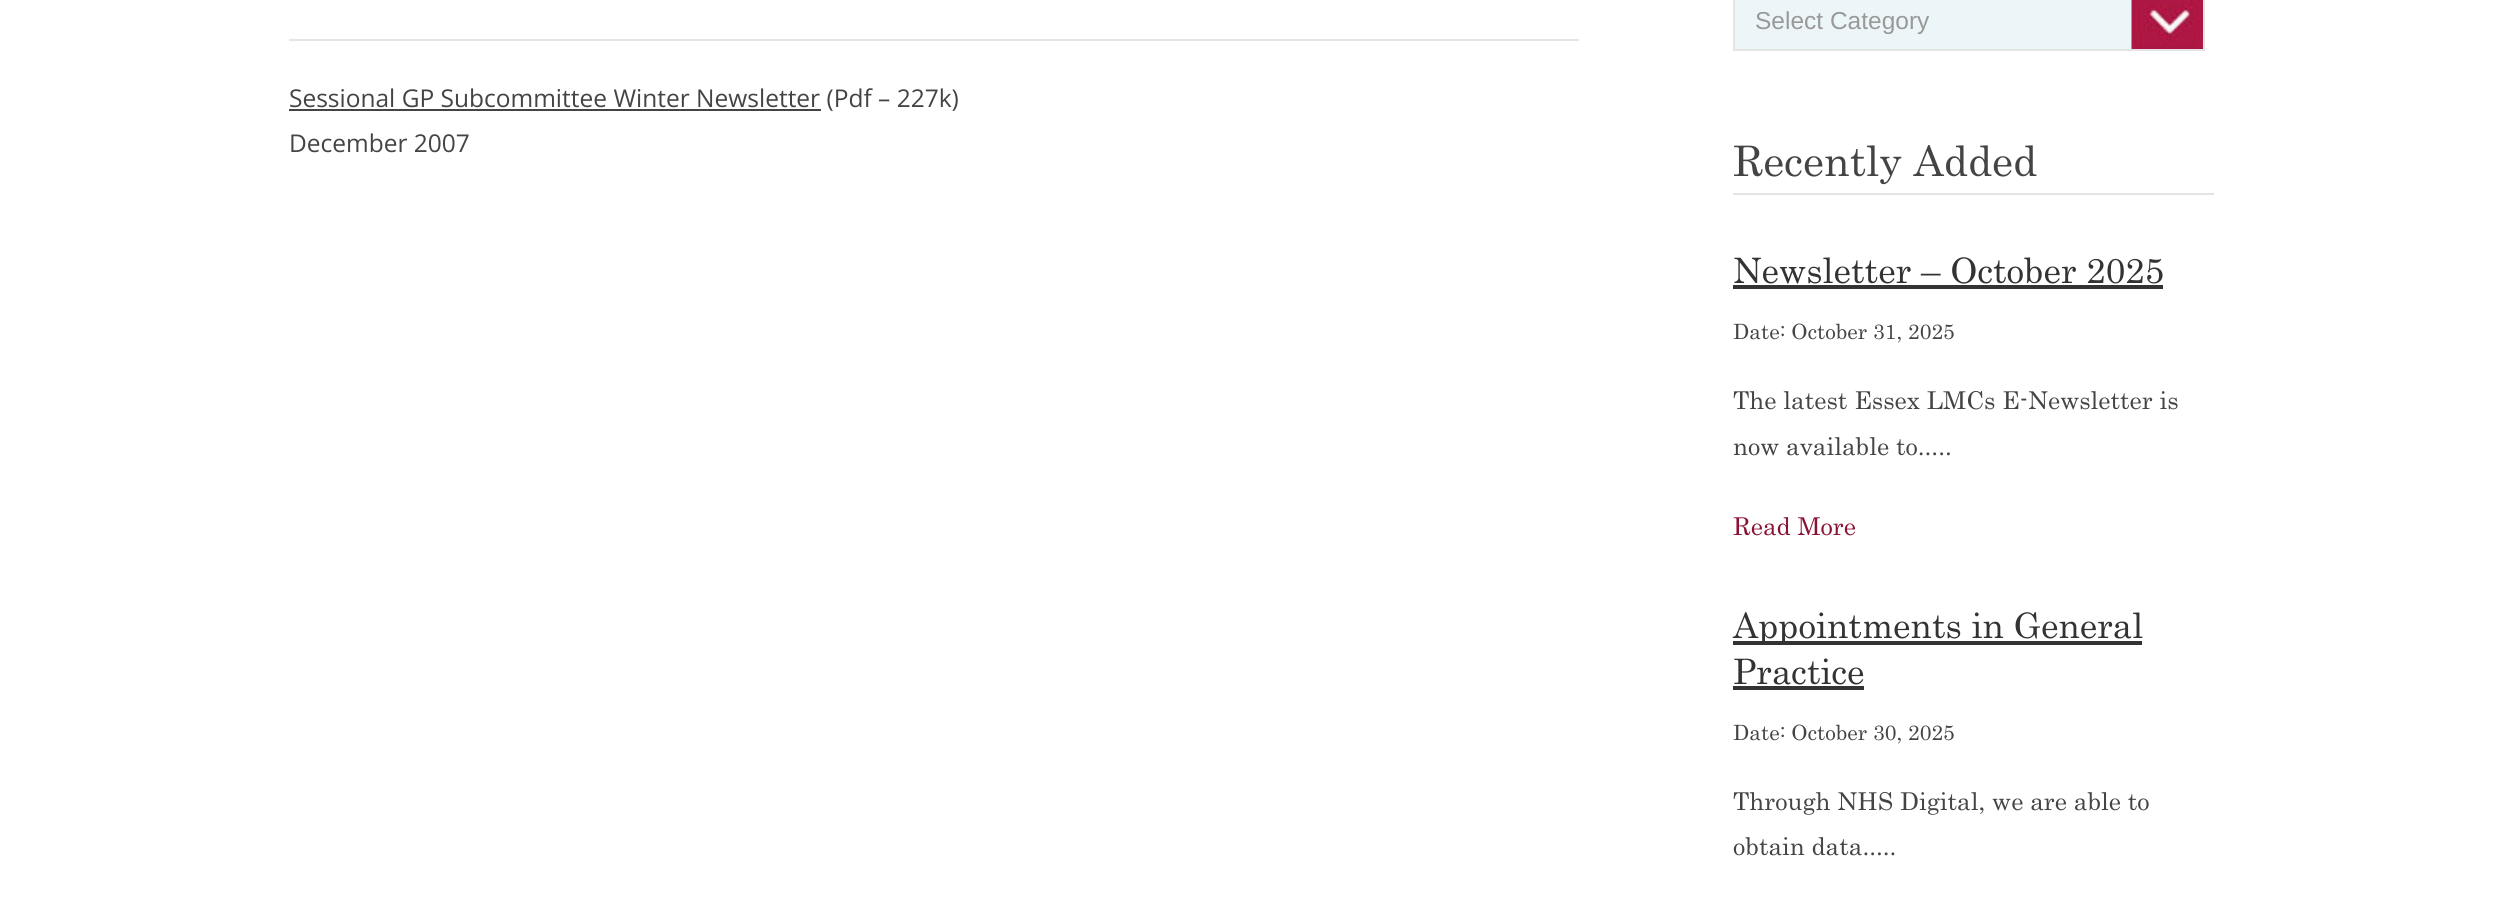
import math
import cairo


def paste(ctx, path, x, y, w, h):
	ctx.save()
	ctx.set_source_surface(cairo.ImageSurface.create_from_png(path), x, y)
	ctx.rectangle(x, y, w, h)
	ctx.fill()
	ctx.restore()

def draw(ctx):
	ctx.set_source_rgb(1, 1, 1)
	ctx.paint()
	ctx.set_source_rgb(0.894, 0.894, 0.894)
	ctx.rectangle(289, 39, 1290, 2)
	ctx.fill()
	ctx.set_source_rgb(0.267, 0.267, 0.267)
	ctx.rectangle(289, 109, 532, 2)
	ctx.fill()
	ctx.select_font_face('Open Sans')
	ctx.set_font_size(24.5)
	ctx.move_to(289, 107)
	ctx.show_text('Sessional GP Subcommittee Winter Newsletter (Pdf – 227k)')
	ctx.move_to(289, 152)
	ctx.show_text('December 2007')
	ctx.set_source_rgb(0.925, 0.961, 0.969)
	ctx.rectangle(1735, 0, 397, 49)
	ctx.fill()
	paste(ctx, 'media/1.png', 2131, 0, 72, 49)
	ctx.rectangle(1734, -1, 470, 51)
	ctx.set_source_rgb(0.894, 0.894, 0.894)
	ctx.stroke()
	ctx.select_font_face('Liberation Sans')
	ctx.set_source_rgb(0.6, 0.6, 0.6)
	ctx.move_to(1755, 29)
	ctx.show_text('Select Category')
	ctx.set_source_rgb(0.894, 0.894, 0.894)
	ctx.rectangle(1733, 193, 481, 2)
	ctx.fill()
	ctx.select_font_face('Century')
	ctx.set_font_size(42)
	ctx.set_source_rgb(0.267, 0.267, 0.267)
	ctx.move_to(1733, 176)
	ctx.show_text('Recently Added')
	ctx.set_font_size(35)
	ctx.set_source_rgb(0.2, 0.2, 0.2)
	ctx.move_to(1733, 283)
	ctx.show_text('Newsletter – October 2025')
	ctx.rectangle(1733, 285, 430, 4)
	ctx.fill()
	ctx.set_font_size(21)
	ctx.set_source_rgb(0.267, 0.267, 0.267)
	ctx.move_to(1733, 339)
	ctx.show_text('Date: October 31, 2025')
	ctx.set_font_size(24.5)
	ctx.move_to(1733, 409)
	ctx.show_text('The latest Essex LMCs E-Newsletter is')
	ctx.move_to(1733, 455)
	ctx.show_text('now available to.....')
	ctx.set_source_rgb(0.541, 0.071, 0.204)
	ctx.move_to(1733, 535)
	ctx.show_text('Read More')
	ctx.set_source_rgb(0.2, 0.2, 0.2)
	ctx.rectangle(1733, 641, 409, 4)
	ctx.fill()
	ctx.set_font_size(35)
	ctx.move_to(1733, 638)
	ctx.show_text('Appointments in General')
	ctx.move_to(1733, 684)
	ctx.show_text('Practice')
	ctx.rectangle(1733, 686, 131, 4)
	ctx.fill()
	ctx.set_font_size(21)
	ctx.set_source_rgb(0.267, 0.267, 0.267)
	ctx.move_to(1733, 740)
	ctx.show_text('Date: October 30, 2025')
	ctx.set_font_size(24.5)
	ctx.move_to(1733, 810)
	ctx.show_text('Through NHS Digital, we are able to')
	ctx.move_to(1733, 855)
	ctx.show_text('obtain data.....')


surface = cairo.ImageSurface(cairo.FORMAT_RGB24, 2501, 920)
ctx = cairo.Context(surface)
options = cairo.FontOptions()
options.set_hint_metrics(cairo.HINT_METRICS_OFF)
options.set_hint_style(cairo.HINT_STYLE_NONE)
ctx.set_font_options(options)
ctx.set_miter_limit(4)
draw(ctx)
surface.write_to_png('image.png')
